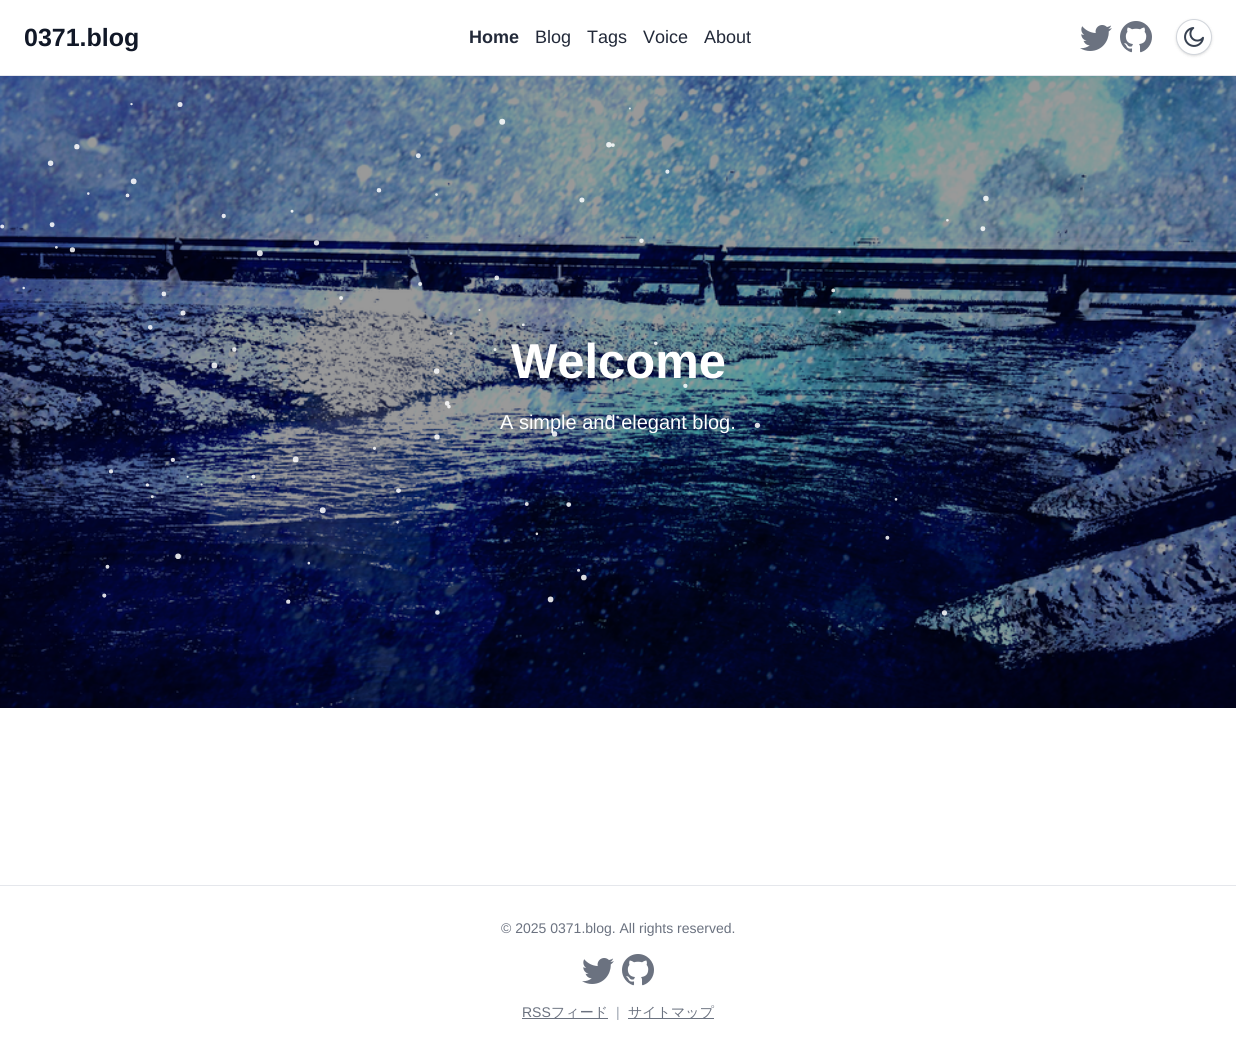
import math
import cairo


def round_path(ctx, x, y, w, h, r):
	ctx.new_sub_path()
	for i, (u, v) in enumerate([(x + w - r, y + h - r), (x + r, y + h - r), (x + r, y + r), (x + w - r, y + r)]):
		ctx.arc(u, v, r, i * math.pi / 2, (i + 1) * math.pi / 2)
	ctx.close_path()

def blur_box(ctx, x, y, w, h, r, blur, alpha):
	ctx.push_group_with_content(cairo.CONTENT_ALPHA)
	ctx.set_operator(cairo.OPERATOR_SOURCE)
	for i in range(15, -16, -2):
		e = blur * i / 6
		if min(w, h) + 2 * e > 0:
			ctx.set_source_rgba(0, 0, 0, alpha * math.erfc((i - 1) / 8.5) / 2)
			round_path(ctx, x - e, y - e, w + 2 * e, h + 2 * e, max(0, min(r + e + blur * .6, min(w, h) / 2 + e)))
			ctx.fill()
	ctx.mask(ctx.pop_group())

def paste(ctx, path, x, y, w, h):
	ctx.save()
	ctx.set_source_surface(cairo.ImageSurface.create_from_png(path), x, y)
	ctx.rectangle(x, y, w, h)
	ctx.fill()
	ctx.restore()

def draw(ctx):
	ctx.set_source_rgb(1, 1, 1)
	ctx.paint()
	ctx.set_source_rgb(0.898, 0.906, 0.922)
	ctx.rectangle(0, 75, 1236, 1)
	ctx.fill()
	ctx.select_font_face('Liberation Sans', cairo.FONT_SLANT_NORMAL, cairo.FONT_WEIGHT_BOLD)
	ctx.set_font_size(25)
	ctx.set_source_rgb(0.067, 0.094, 0.153)
	ctx.move_to(24, 46)
	ctx.show_text('0371.blog')
	ctx.set_font_size(18)
	ctx.set_source_rgb(0.133, 0.161, 0.224)
	ctx.move_to(469, 43)
	ctx.show_text('Home')
	ctx.select_font_face('Liberation Sans')
	for x, y, s in [
		(535, 43, 'Blog'),
		(587, 43, 'Tags'),
		(643, 43, 'Voice'),
		(704, 43, 'About'),
	]:
		ctx.move_to(x, y)
		ctx.show_text(s)
	paste(ctx, 'media/1.png', 1080, 25, 32, 26)
	paste(ctx, 'media/2.png', 1120, 21, 32, 32)
	ctx.set_source_rgb(0, 0, 0)
	blur_box(ctx, 1177, 21, 34, 34, 17, 1, 0.1)
	blur_box(ctx, 1176, 20, 36, 36, 18, 1.5, 0.1)
	ctx.set_source_rgb(1, 1, 1)
	ctx.arc(1194, 37, 17.5, 0, 2 * math.pi)
	ctx.fill_preserve()
	ctx.set_source_rgb(0.82, 0.835, 0.859)
	ctx.set_line_width(1)
	ctx.stroke()
	paste(ctx, 'media/3.png', 1184, 27, 20, 20)
	paste(ctx, 'media/4.png', 0, 76, 1236, 632)
	ctx.select_font_face('Liberation Sans', cairo.FONT_SLANT_NORMAL, cairo.FONT_WEIGHT_BOLD)
	ctx.set_font_size(49)
	ctx.set_source_rgb(1, 1, 1)
	ctx.move_to(511, 378)
	ctx.show_text('Welcome')
	ctx.select_font_face('Liberation Sans')
	ctx.set_font_size(20)
	ctx.move_to(500, 429)
	ctx.show_text('A simple and elegant blog.')
	paste(ctx, 'media/5.png', 0, 102, 989, 514)
	ctx.set_source_rgb(0.898, 0.906, 0.922)
	ctx.rectangle(0, 885, 1236, 1)
	ctx.fill()
	ctx.set_font_size(14)
	ctx.set_source_rgb(0.42, 0.447, 0.502)
	ctx.move_to(501, 933)
	ctx.show_text('© 2025 0371.blog. All rights reserved.')
	paste(ctx, 'media/1.png', 582, 958, 32, 26)
	paste(ctx, 'media/2.png', 622, 954, 32, 32)
	ctx.move_to(522, 1017)
	ctx.show_text('RSS')
	ctx.rectangle(522, 1018, 86, 1)
	ctx.fill()
	ctx.select_font_face('WenQuanYi Zen Hei Medium')
	ctx.move_to(551, 1017)
	ctx.show_text('フィード')
	ctx.select_font_face('Liberation Sans')
	ctx.set_source_rgb(0.612, 0.639, 0.686)
	ctx.move_to(616, 1017)
	ctx.show_text('|')
	ctx.set_source_rgb(0.42, 0.447, 0.502)
	ctx.rectangle(628, 1018, 86, 1)
	ctx.fill()
	ctx.select_font_face('WenQuanYi Zen Hei Medium')
	ctx.move_to(628, 1017)
	ctx.show_text('サイトマップ')


surface = cairo.ImageSurface(cairo.FORMAT_RGB24, 1236, 1054)
ctx = cairo.Context(surface)
options = cairo.FontOptions()
options.set_hint_metrics(cairo.HINT_METRICS_OFF)
options.set_hint_style(cairo.HINT_STYLE_NONE)
ctx.set_font_options(options)
ctx.set_miter_limit(4)
draw(ctx)
surface.write_to_png('image.png')
